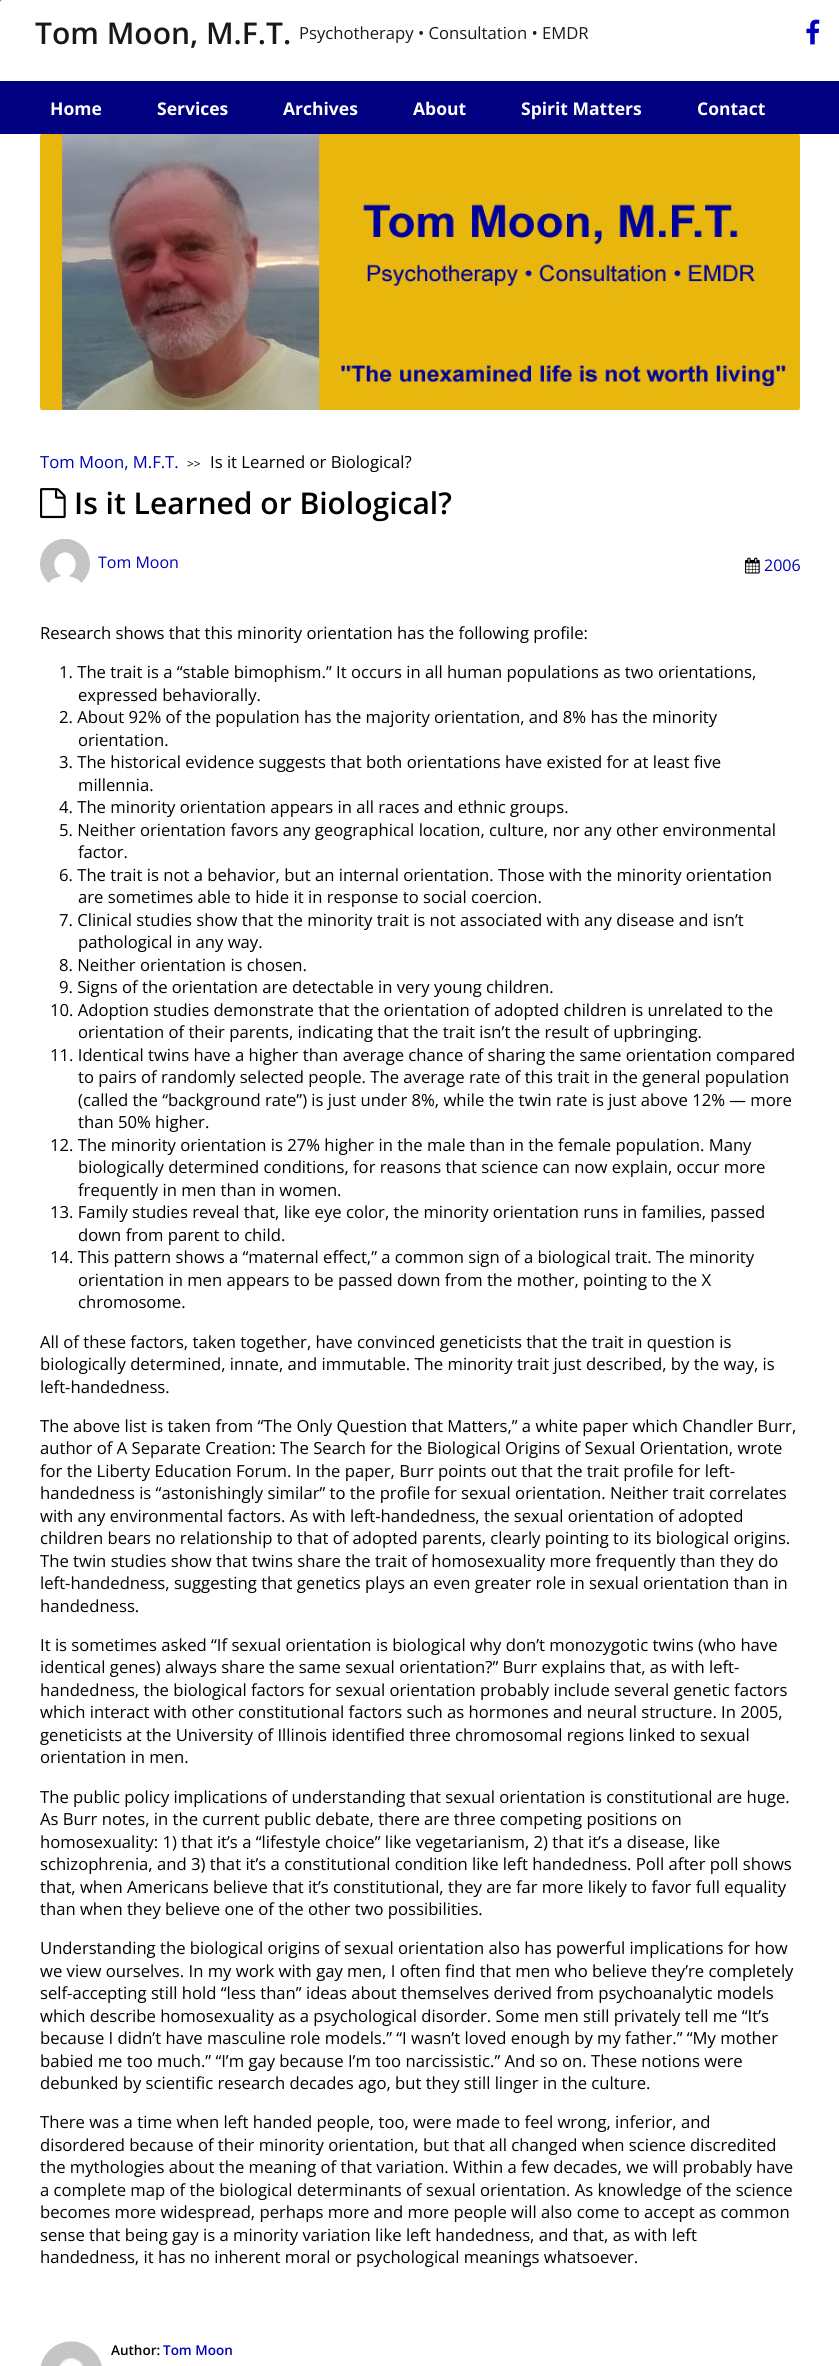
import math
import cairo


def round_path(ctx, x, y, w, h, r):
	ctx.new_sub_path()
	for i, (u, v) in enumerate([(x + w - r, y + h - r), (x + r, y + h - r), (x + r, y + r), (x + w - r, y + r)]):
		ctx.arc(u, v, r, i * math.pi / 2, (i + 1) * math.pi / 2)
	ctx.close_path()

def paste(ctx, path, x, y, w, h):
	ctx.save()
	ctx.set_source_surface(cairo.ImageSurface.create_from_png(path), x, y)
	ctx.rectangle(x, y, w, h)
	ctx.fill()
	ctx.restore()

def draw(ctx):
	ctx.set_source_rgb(1, 1, 1)
	ctx.paint()
	paste(ctx, 'media/1.png', 0, 0, 839, 3)
	ctx.set_source_rgb(1, 1, 1)
	round_path(ctx, 0, 0, 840, 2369, 2.5)
	ctx.fill()
	ctx.select_font_face('Open Sans SemiBold')
	ctx.set_font_size(30)
	ctx.set_source_rgb(0.098, 0.098, 0.098)
	ctx.move_to(35, 44)
	ctx.show_text('Tom Moon, M.F.T.')
	ctx.select_font_face('Open Sans')
	ctx.set_font_size(16.65)
	ctx.move_to(299, 39)
	ctx.show_text('Psychotherapy • Consultation • EMDR')
	paste(ctx, 'media/2.png', 806, 19, 14, 26)
	ctx.set_source_rgb(0, 0, 0.502)
	ctx.rectangle(0, 81, 839, 53)
	ctx.fill()
	ctx.select_font_face('Open Sans', cairo.FONT_SLANT_NORMAL, cairo.FONT_WEIGHT_BOLD)
	ctx.set_font_size(17.5)
	ctx.set_source_rgb(1, 1, 1)
	for x, y, s in [
		(50, 115, 'Home'),
		(157, 115, 'Services'),
		(283, 115, 'Archives'),
		(413, 115, 'About'),
		(521, 115, 'Spirit Matters'),
		(697, 115, 'Contact'),
	]:
		ctx.move_to(x, y)
		ctx.show_text(s)
	paste(ctx, 'media/3.png', 40, 134, 760, 276)
	ctx.select_font_face('Open Sans')
	ctx.set_font_size(16.65)
	ctx.set_source_rgb(0, 0, 0.737)
	ctx.move_to(40, 468)
	ctx.show_text('Tom Moon, M.F.T.')
	ctx.set_font_size(12)
	ctx.set_source_rgb(0, 0, 0)
	ctx.move_to(187, 468)
	ctx.show_text('>>')
	ctx.set_font_size(16.65)
	ctx.move_to(210, 468)
	ctx.show_text('Is it Learned or Biological?')
	paste(ctx, 'media/4.png', 40, 488, 26, 31)
	ctx.select_font_face('Open Sans SemiBold')
	ctx.set_font_size(30)
	ctx.move_to(74, 514)
	ctx.show_text('Is it Learned or Biological?')
	paste(ctx, 'media/5.png', 40, 539, 50, 44)
	ctx.select_font_face('Open Sans')
	ctx.set_font_size(16)
	ctx.set_source_rgb(0, 0, 0.737)
	ctx.move_to(98, 568)
	ctx.show_text('Tom Moon')
	paste(ctx, 'media/6.png', 745, 557, 15, 17)
	ctx.move_to(764, 571)
	ctx.show_text('2006')
	ctx.set_font_size(16.65)
	ctx.set_source_rgb(0, 0, 0)
	for x, y, s in [
		(40, 639, 'Research shows that this minority orientation has the following profile:'),
		(59, 678, '1. The trait is a “stable bimophism.” It occurs in all human populations as two orientations,'),
		(78, 701, 'expressed behaviorally.'),
		(59, 723, '2. About 92% of the population has the majority orientation, and 8% has the minority'),
		(78, 746, 'orientation.'),
		(59, 768, '3. The historical evidence suggests that both orientations have existed for at least five'),
		(78, 791, 'millennia.'),
		(59, 813, '4. The minority orientation appears in all races and ethnic groups.'),
		(59, 836, '5. Neither orientation favors any geographical location, culture, nor any other environmental'),
		(78, 858, 'factor.'),
		(59, 881, '6. The trait is not a behavior, but an internal orientation. Those with the minority orientation'),
		(78, 903, 'are sometimes able to hide it in response to social coercion.'),
		(59, 926, '7. Clinical studies show that the minority trait is not associated with any disease and isn’t'),
		(78, 948, 'pathological in any way.'),
		(59, 971, '8. Neither orientation is chosen.'),
		(59, 993, '9. Signs of the orientation are detectable in very young children.'),
		(50, 1016, '10. Adoption studies demonstrate that the orientation of adopted children is unrelated to the'),
		(78, 1038, 'orientation of their parents, indicating that the trait isn’t the result of upbringing.'),
		(50, 1061, '11. Identical twins have a higher than average chance of sharing the same orientation compared'),
		(78, 1083, 'to pairs of randomly selected people. The average rate of this trait in the general population'),
		(78, 1106, '(called the “background rate”) is just under 8%, while the twin rate is just above 12% — more'),
		(78, 1128, 'than 50% higher.'),
		(50, 1151, '12. The minority orientation is 27% higher in the male than in the female population. Many'),
		(78, 1173, 'biologically determined conditions, for reasons that science can now explain, occur more'),
		(78, 1196, 'frequently in men than in women.'),
		(50, 1218, '13. Family studies reveal that, like eye color, the minority orientation runs in families, passed'),
		(78, 1241, 'down from parent to child.'),
		(50, 1263, '14. This pattern shows a “maternal effect,” a common sign of a biological trait. The minority'),
		(78, 1286, 'orientation in men appears to be passed down from the mother, pointing to the X'),
		(78, 1308, 'chromosome.'),
		(40, 1348, 'All of these factors, taken together, have convinced geneticists that the trait in question is'),
		(40, 1370, 'biologically determined, innate, and immutable. The minority trait just described, by the way, is'),
		(40, 1393, 'left-handedness.'),
		(40, 1432, 'The above list is taken from “The Only Question that Matters,” a white paper which Chandler Burr,'),
		(40, 1454, 'author of A Separate Creation: The Search for the Biological Origins of Sexual Orientation, wrote'),
		(40, 1477, 'for the Liberty Education Forum. In the paper, Burr points out that the trait profile for left-'),
		(40, 1499, 'handedness is “astonishingly similar” to the profile for sexual orientation. Neither trait correlates'),
		(40, 1522, 'with any environmental factors. As with left-handedness, the sexual orientation of adopted'),
		(40, 1544, 'children bears no relationship to that of adopted parents, clearly pointing to its biological origins.'),
		(40, 1567, 'The twin studies show that twins share the trait of homosexuality more frequently than they do'),
		(40, 1589, 'left-handedness, suggesting that genetics plays an even greater role in sexual orientation than in'),
		(40, 1612, 'handedness.'),
		(40, 1651, 'It is sometimes asked “If sexual orientation is biological why don’t monozygotic twins (who have'),
		(40, 1673, 'identical genes) always share the same sexual orientation?” Burr explains that, as with left-'),
		(40, 1696, 'handedness, the biological factors for sexual orientation probably include several genetic factors'),
		(40, 1718, 'which interact with other constitutional factors such as hormones and neural structure. In 2005,'),
		(40, 1741, 'geneticists at the University of Illinois identified three chromosomal regions linked to sexual'),
		(40, 1763, 'orientation in men.'),
		(40, 1803, 'The public policy implications of understanding that sexual orientation is constitutional are huge.'),
		(40, 1825, 'As Burr notes, in the current public debate, there are three competing positions on'),
		(40, 1848, 'homosexuality: 1) that it’s a “lifestyle choice” like vegetarianism, 2) that it’s a disease, like'),
		(40, 1870, 'schizophrenia, and 3) that it’s a constitutional condition like left handedness. Poll after poll shows'),
		(40, 1893, 'that, when Americans believe that it’s constitutional, they are far more likely to favor full equality'),
		(40, 1915, 'than when they believe one of the other two possibilities.'),
		(40, 1954, 'Understanding the biological origins of sexual orientation also has powerful implications for how'),
		(40, 1977, 'we view ourselves. In my work with gay men, I often find that men who believe they’re completely'),
		(40, 1999, 'self-accepting still hold “less than” ideas about themselves derived from psychoanalytic models'),
		(40, 2022, 'which describe homosexuality as a psychological disorder. Some men still privately tell me “It’s'),
		(40, 2044, 'because I didn’t have masculine role models.” “I wasn’t loved enough by my father.” “My mother'),
		(40, 2067, 'babied me too much.” “I’m gay because I’m too narcissistic.” And so on. These notions were'),
		(40, 2089, 'debunked by scientific research decades ago, but they still linger in the culture.'),
		(40, 2128, 'There was a time when left handed people, too, were made to feel wrong, inferior, and'),
		(40, 2151, 'disordered because of their minority orientation, but that all changed when science discredited'),
		(40, 2173, 'the mythologies about the meaning of that variation. Within a few decades, we will probably have'),
		(40, 2196, 'a complete map of the biological determinants of sexual orientation. As knowledge of the science'),
		(40, 2218, 'becomes more widespread, perhaps more and more people will also come to accept as common'),
		(40, 2241, 'sense that being gay is a minority variation like left handedness, and that, as with left'),
		(40, 2263, 'handedness, it has no inherent moral or psychological meanings whatsoever.'),
	]:
		ctx.move_to(x, y)
		ctx.show_text(s)
	paste(ctx, 'media/7.png', 40, 2341, 62, 25)
	ctx.select_font_face('Open Sans SemiBold')
	ctx.set_font_size(13.5)
	ctx.move_to(111, 2355)
	ctx.show_text('Author:')
	ctx.set_source_rgb(0, 0, 0.737)
	ctx.move_to(163, 2355)
	ctx.show_text('Tom Moon')


surface = cairo.ImageSurface(cairo.FORMAT_RGB24, 839, 2366)
ctx = cairo.Context(surface)
options = cairo.FontOptions()
options.set_hint_metrics(cairo.HINT_METRICS_OFF)
options.set_hint_style(cairo.HINT_STYLE_NONE)
ctx.set_font_options(options)
ctx.set_miter_limit(4)
draw(ctx)
surface.write_to_png('image.png')
